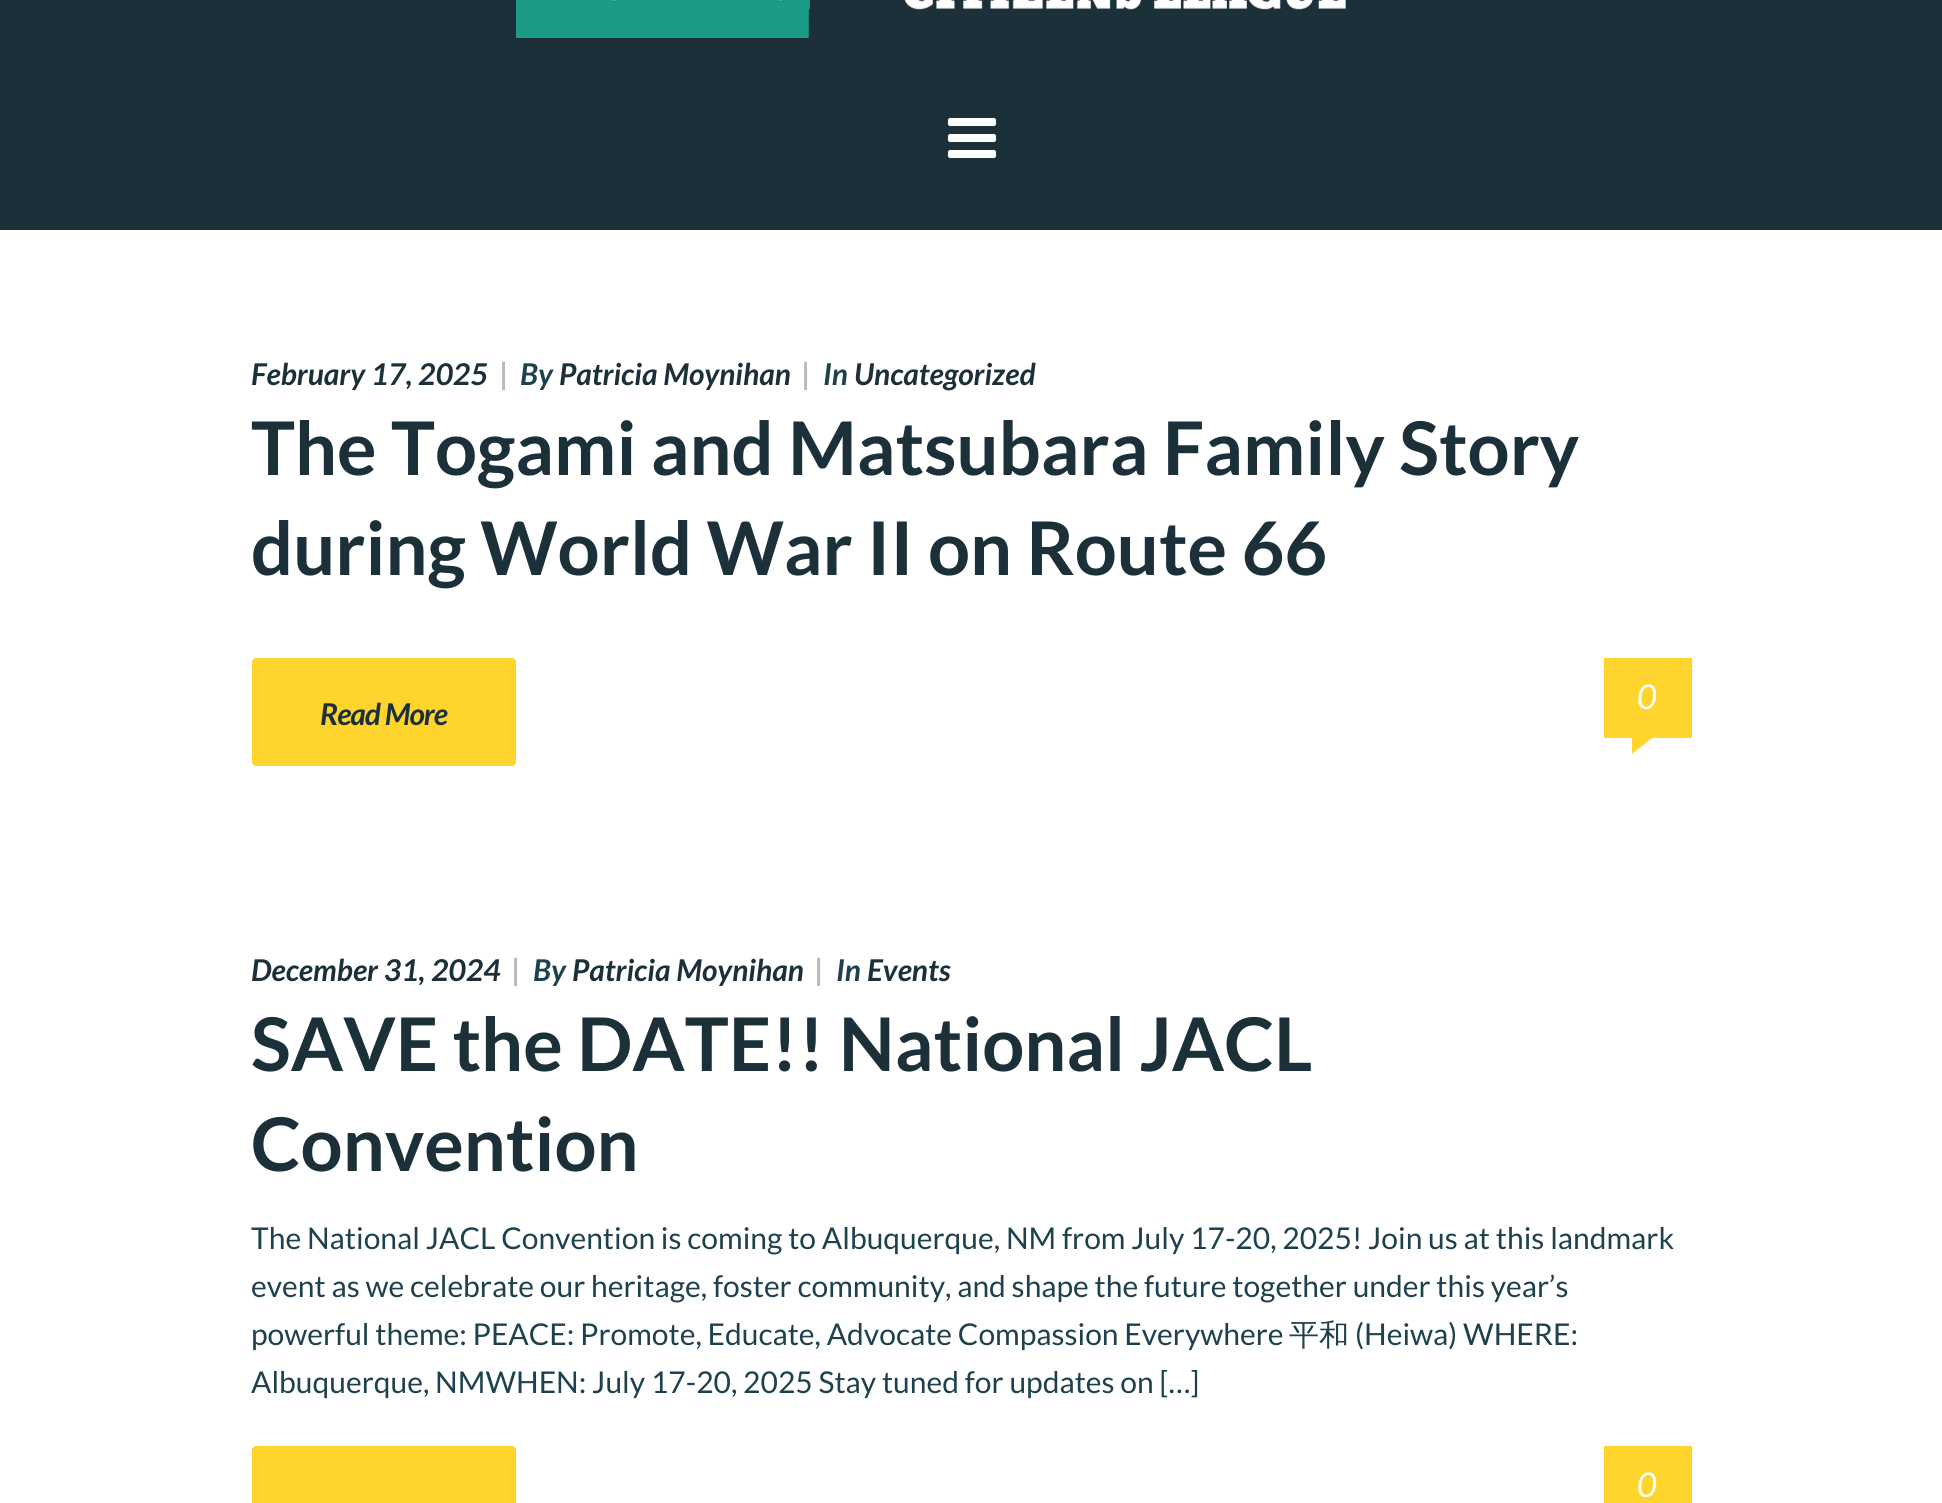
import math
import cairo


def write_spaced(ctx, x, y, s, letter, word):
	ctx.move_to(x, y)
	for ch in s:
		ctx.show_text(ch)
		ctx.rel_move_to(letter + word * (ch == ' '), 0)

def round_path(ctx, x, y, w, h, r):
	ctx.new_sub_path()
	for i, (u, v) in enumerate([(x + w - r, y + h - r), (x + r, y + h - r), (x + r, y + r), (x + w - r, y + r)]):
		ctx.arc(u, v, r, i * math.pi / 2, (i + 1) * math.pi / 2)
	ctx.close_path()

def paste(ctx, path, x, y, w, h):
	ctx.save()
	ctx.set_source_surface(cairo.ImageSurface.create_from_png(path), x, y)
	ctx.rectangle(x, y, w, h)
	ctx.fill()
	ctx.restore()

def draw(ctx):
	ctx.set_source_rgb(1, 1, 1)
	ctx.paint()
	ctx.set_source_rgb(0.106, 0.188, 0.224)
	ctx.rectangle(0, 0, 1942, 230)
	ctx.fill()
	paste(ctx, 'media/1.png', 516, 0, 830, 38)
	paste(ctx, 'media/2.png', 948, 118, 48, 40)
	ctx.select_font_face('Lato', cairo.FONT_SLANT_ITALIC, cairo.FONT_WEIGHT_BOLD)
	ctx.set_font_size(30)
	ctx.move_to(251, 385)
	ctx.show_text('February 17, 2025')
	ctx.set_source_rgb(0.714, 0.722, 0.725)
	ctx.move_to(500, 385)
	ctx.show_text('|')
	ctx.set_source_rgb(0.118, 0.255, 0.306)
	ctx.move_to(520, 385)
	ctx.show_text('By')
	ctx.set_source_rgb(0.106, 0.188, 0.224)
	ctx.move_to(559, 385)
	ctx.show_text('Patricia Moynihan')
	ctx.set_source_rgb(0.714, 0.722, 0.725)
	ctx.move_to(802, 385)
	ctx.show_text('|')
	ctx.set_source_rgb(0.118, 0.255, 0.306)
	ctx.move_to(823, 385)
	ctx.show_text('In')
	ctx.set_source_rgb(0.106, 0.188, 0.224)
	ctx.move_to(854, 385)
	ctx.show_text('Uncategorized')
	ctx.select_font_face('Lato', cairo.FONT_SLANT_NORMAL, cairo.FONT_WEIGHT_BOLD)
	ctx.set_font_size(74)
	ctx.move_to(251, 475)
	ctx.show_text('The Togami and Matsubara Family Story')
	ctx.move_to(251, 575)
	ctx.show_text('during World War II on Route 66')
	ctx.set_source_rgb(1, 0.835, 0.176)
	ctx.rectangle(1604, 658, 88, 80)
	ctx.fill()
	ctx.select_font_face('Lato', cairo.FONT_SLANT_ITALIC)
	ctx.set_font_size(34)
	ctx.set_source_rgb(1, 1, 1)
	ctx.move_to(1637, 709)
	ctx.show_text('0')
	ctx.set_source_rgb(1, 0.835, 0.176)
	ctx.new_path()
	ctx.move_to(1632, 738)
	ctx.line_to(1652, 738)
	ctx.line_to(1632, 754)
	ctx.close_path()
	ctx.fill()
	round_path(ctx, 252, 658, 264, 108, 4)
	ctx.fill()
	ctx.select_font_face('Lato', cairo.FONT_SLANT_ITALIC, cairo.FONT_WEIGHT_BOLD)
	ctx.set_font_size(30)
	ctx.set_source_rgb(0.106, 0.188, 0.224)
	write_spaced(ctx, 320, 725, 'Read More', -1, 0)
	ctx.move_to(251, 981)
	ctx.show_text('December 31, 2024')
	ctx.set_source_rgb(0.714, 0.722, 0.725)
	ctx.move_to(512, 981)
	ctx.show_text('|')
	ctx.set_source_rgb(0.118, 0.255, 0.306)
	ctx.move_to(533, 981)
	ctx.show_text('By')
	ctx.set_source_rgb(0.106, 0.188, 0.224)
	ctx.move_to(572, 981)
	ctx.show_text('Patricia Moynihan')
	ctx.set_source_rgb(0.714, 0.722, 0.725)
	ctx.move_to(815, 981)
	ctx.show_text('|')
	ctx.set_source_rgb(0.118, 0.255, 0.306)
	ctx.move_to(836, 981)
	ctx.show_text('In')
	ctx.set_source_rgb(0.106, 0.188, 0.224)
	ctx.move_to(867, 981)
	ctx.show_text('Events')
	ctx.select_font_face('Lato', cairo.FONT_SLANT_NORMAL, cairo.FONT_WEIGHT_BOLD)
	ctx.set_font_size(74)
	ctx.move_to(251, 1071)
	ctx.show_text('SAVE the DATE!! National JACL')
	ctx.move_to(251, 1171)
	ctx.show_text('Convention')
	ctx.select_font_face('Lato')
	ctx.set_font_size(30)
	ctx.set_source_rgb(0.118, 0.255, 0.306)
	for x, y, s in [
		(251, 1249, 'The National JACL Convention is coming to Albuquerque, NM from July 17-20, 2025! Join us at this landmark'),
		(251, 1297, 'event as we celebrate our heritage, foster community, and shape the future together under this year’s'),
		(251, 1345, 'powerful theme: PEACE: Promote, Educate, Advocate Compassion Everywhere'),
	]:
		ctx.move_to(x, y)
		ctx.show_text(s)
	ctx.select_font_face('WenQuanYi Zen Hei Medium')
	ctx.move_to(1289, 1345)
	ctx.show_text('平和')
	ctx.select_font_face('Lato')
	ctx.move_to(1355, 1345)
	ctx.show_text('(Heiwa) WHERE:')
	ctx.move_to(251, 1393)
	ctx.show_text('Albuquerque, NMWHEN: July 17-20, 2025 Stay tuned for updates on […]')
	ctx.set_source_rgb(1, 0.835, 0.176)
	round_path(ctx, 252, 1446, 264, 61, 4)
	ctx.fill()
	ctx.rectangle(1604, 1446, 88, 57)
	ctx.fill()
	ctx.select_font_face('Lato', cairo.FONT_SLANT_ITALIC)
	ctx.set_font_size(34)
	ctx.set_source_rgb(1, 1, 1)
	ctx.move_to(1637, 1497)
	ctx.show_text('0')


surface = cairo.ImageSurface(cairo.FORMAT_RGB24, 1942, 1503)
ctx = cairo.Context(surface)
options = cairo.FontOptions()
options.set_hint_metrics(cairo.HINT_METRICS_OFF)
options.set_hint_style(cairo.HINT_STYLE_NONE)
ctx.set_font_options(options)
ctx.set_miter_limit(4)
draw(ctx)
surface.write_to_png('image.png')
